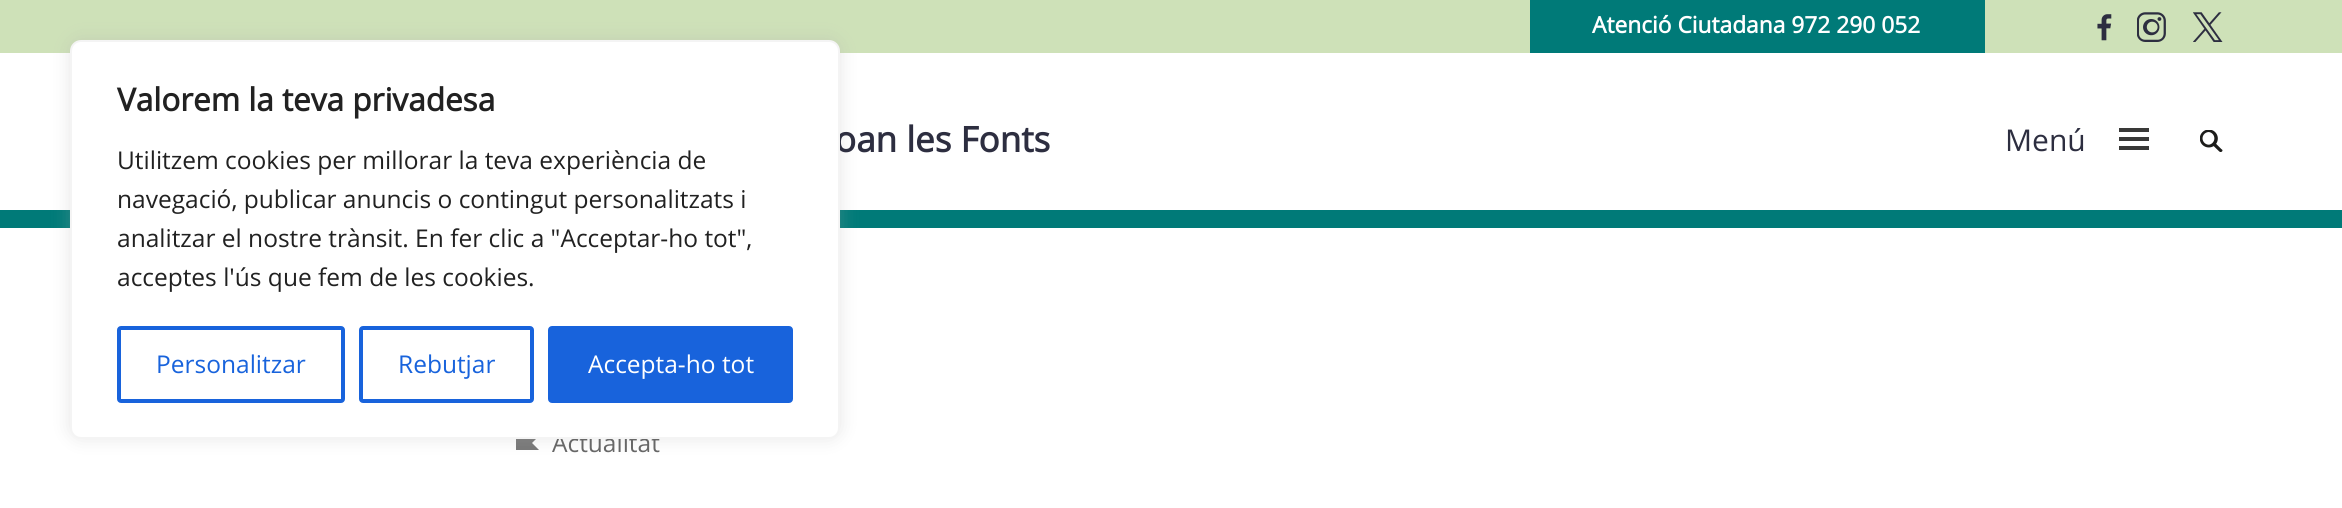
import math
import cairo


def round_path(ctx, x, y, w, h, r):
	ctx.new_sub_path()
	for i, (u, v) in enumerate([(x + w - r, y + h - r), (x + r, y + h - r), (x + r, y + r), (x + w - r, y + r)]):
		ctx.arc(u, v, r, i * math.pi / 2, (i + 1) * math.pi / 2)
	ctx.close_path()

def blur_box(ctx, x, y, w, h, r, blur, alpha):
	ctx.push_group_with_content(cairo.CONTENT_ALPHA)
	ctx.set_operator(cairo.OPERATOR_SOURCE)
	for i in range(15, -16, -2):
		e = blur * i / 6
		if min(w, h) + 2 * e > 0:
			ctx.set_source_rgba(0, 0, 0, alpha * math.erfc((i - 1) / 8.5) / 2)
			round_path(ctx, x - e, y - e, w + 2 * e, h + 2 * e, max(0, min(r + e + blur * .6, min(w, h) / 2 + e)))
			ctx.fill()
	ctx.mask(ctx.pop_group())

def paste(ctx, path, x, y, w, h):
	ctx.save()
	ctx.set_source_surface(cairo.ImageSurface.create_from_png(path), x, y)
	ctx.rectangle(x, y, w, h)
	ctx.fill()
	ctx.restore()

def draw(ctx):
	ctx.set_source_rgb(1, 1, 1)
	ctx.paint()
	ctx.set_source_rgb(0, 0.478, 0.471)
	ctx.rectangle(0, 210, 2342, 18)
	ctx.fill()
	ctx.set_source_rgb(0.808, 0.882, 0.722)
	ctx.rectangle(0, 0, 2342, 53)
	ctx.fill()
	ctx.set_source_rgb(0.467, 0.467, 0.467)
	ctx.set_fill_rule(cairo.FILL_RULE_EVEN_ODD)
	ctx.new_path()
	ctx.move_to(516, 450)
	ctx.line_to(516, 436)
	ctx.line_to(539, 436)
	ctx.line_to(532, 443)
	ctx.line_to(539, 450)
	ctx.close_path()
	ctx.fill()
	ctx.set_source_rgb(0.675, 0.671, 0.671)
	blur_box(ctx, 70, 39, 770, 399, 11, 9, 0.3)
	ctx.select_font_face('Open Sans', cairo.FONT_SLANT_NORMAL, cairo.FONT_WEIGHT_BOLD)
	ctx.set_font_size(35)
	ctx.set_source_rgb(0.176, 0.18, 0.251)
	ctx.move_to(835, 152)
	ctx.show_text('oan les Fonts')
	ctx.select_font_face('Open Sans')
	ctx.set_font_size(24.5)
	ctx.set_source_rgb(0.404, 0.404, 0.404)
	ctx.move_to(552, 452)
	ctx.show_text('Actualitat')
	ctx.set_source_rgb(1, 1, 1)
	round_path(ctx, 71, 41, 768, 397, 10)
	ctx.fill_preserve()
	ctx.set_source_rgb(0.957, 0.957, 0.957)
	ctx.stroke()
	ctx.select_font_face('Open Sans', cairo.FONT_SLANT_NORMAL, cairo.FONT_WEIGHT_BOLD)
	ctx.set_font_size(31.5)
	ctx.set_source_rgb(0.129, 0.129, 0.129)
	ctx.move_to(117, 111)
	ctx.show_text('Valorem la teva privadesa')
	ctx.select_font_face('Open Sans')
	ctx.set_font_size(24.5)
	for x, y, s in [
		(117, 169, 'Utilitzem cookies per millorar la teva experiència de'),
		(117, 208, 'navegació, publicar anuncis o contingut personalitzats i'),
		(117, 247, 'analitzar el nostre trànsit. En fer clic a "Acceptar-ho tot",'),
		(117, 286, 'acceptes l\'ús que fem de les cookies.'),
	]:
		ctx.move_to(x, y)
		ctx.show_text(s)
	round_path(ctx, 119, 328, 224, 73, 2)
	ctx.set_source_rgb(0.094, 0.388, 0.863)
	ctx.set_line_width(4)
	ctx.stroke()
	ctx.move_to(156, 373)
	ctx.show_text('Personalitzar')
	round_path(ctx, 361, 328, 171, 73, 2)
	ctx.stroke()
	ctx.move_to(398, 373)
	ctx.show_text('Rebutjar')
	round_path(ctx, 550, 328, 241, 73, 2)
	ctx.fill_preserve()
	ctx.stroke()
	ctx.set_source_rgb(1, 1, 1)
	ctx.move_to(588, 373)
	ctx.show_text('Accepta-ho tot')
	ctx.set_source_rgb(0, 0.478, 0.471)
	ctx.rectangle(1530, 0, 455, 53)
	ctx.fill()
	ctx.select_font_face('Open Sans', cairo.FONT_SLANT_NORMAL, cairo.FONT_WEIGHT_BOLD)
	ctx.set_font_size(22.75)
	ctx.set_source_rgb(1, 1, 1)
	ctx.move_to(1592, 33)
	ctx.show_text('Atenció Ciutadana 972 290 052')
	paste(ctx, 'media/1.png', 2097, 14, 15, 27)
	paste(ctx, 'media/2.png', 2137, 12, 29, 30)
	paste(ctx, 'media/3.png', 2193, 12, 30, 30)
	ctx.select_font_face('Open Sans')
	ctx.set_font_size(30)
	ctx.set_source_rgb(0.176, 0.18, 0.251)
	ctx.move_to(2005, 151)
	ctx.show_text('Menú')
	ctx.set_source_rgb(0.224, 0.224, 0.22)
	ctx.rectangle(2119, 128, 30, 4)
	ctx.rectangle(2119, 137, 30, 4)
	ctx.rectangle(2119, 146, 30, 4)
	ctx.fill()
	paste(ctx, 'media/4.png', 2200, 130, 23, 22)


surface = cairo.ImageSurface(cairo.FORMAT_RGB24, 2342, 508)
ctx = cairo.Context(surface)
options = cairo.FontOptions()
options.set_hint_metrics(cairo.HINT_METRICS_OFF)
options.set_hint_style(cairo.HINT_STYLE_NONE)
ctx.set_font_options(options)
ctx.set_miter_limit(4)
draw(ctx)
surface.write_to_png('image.png')
